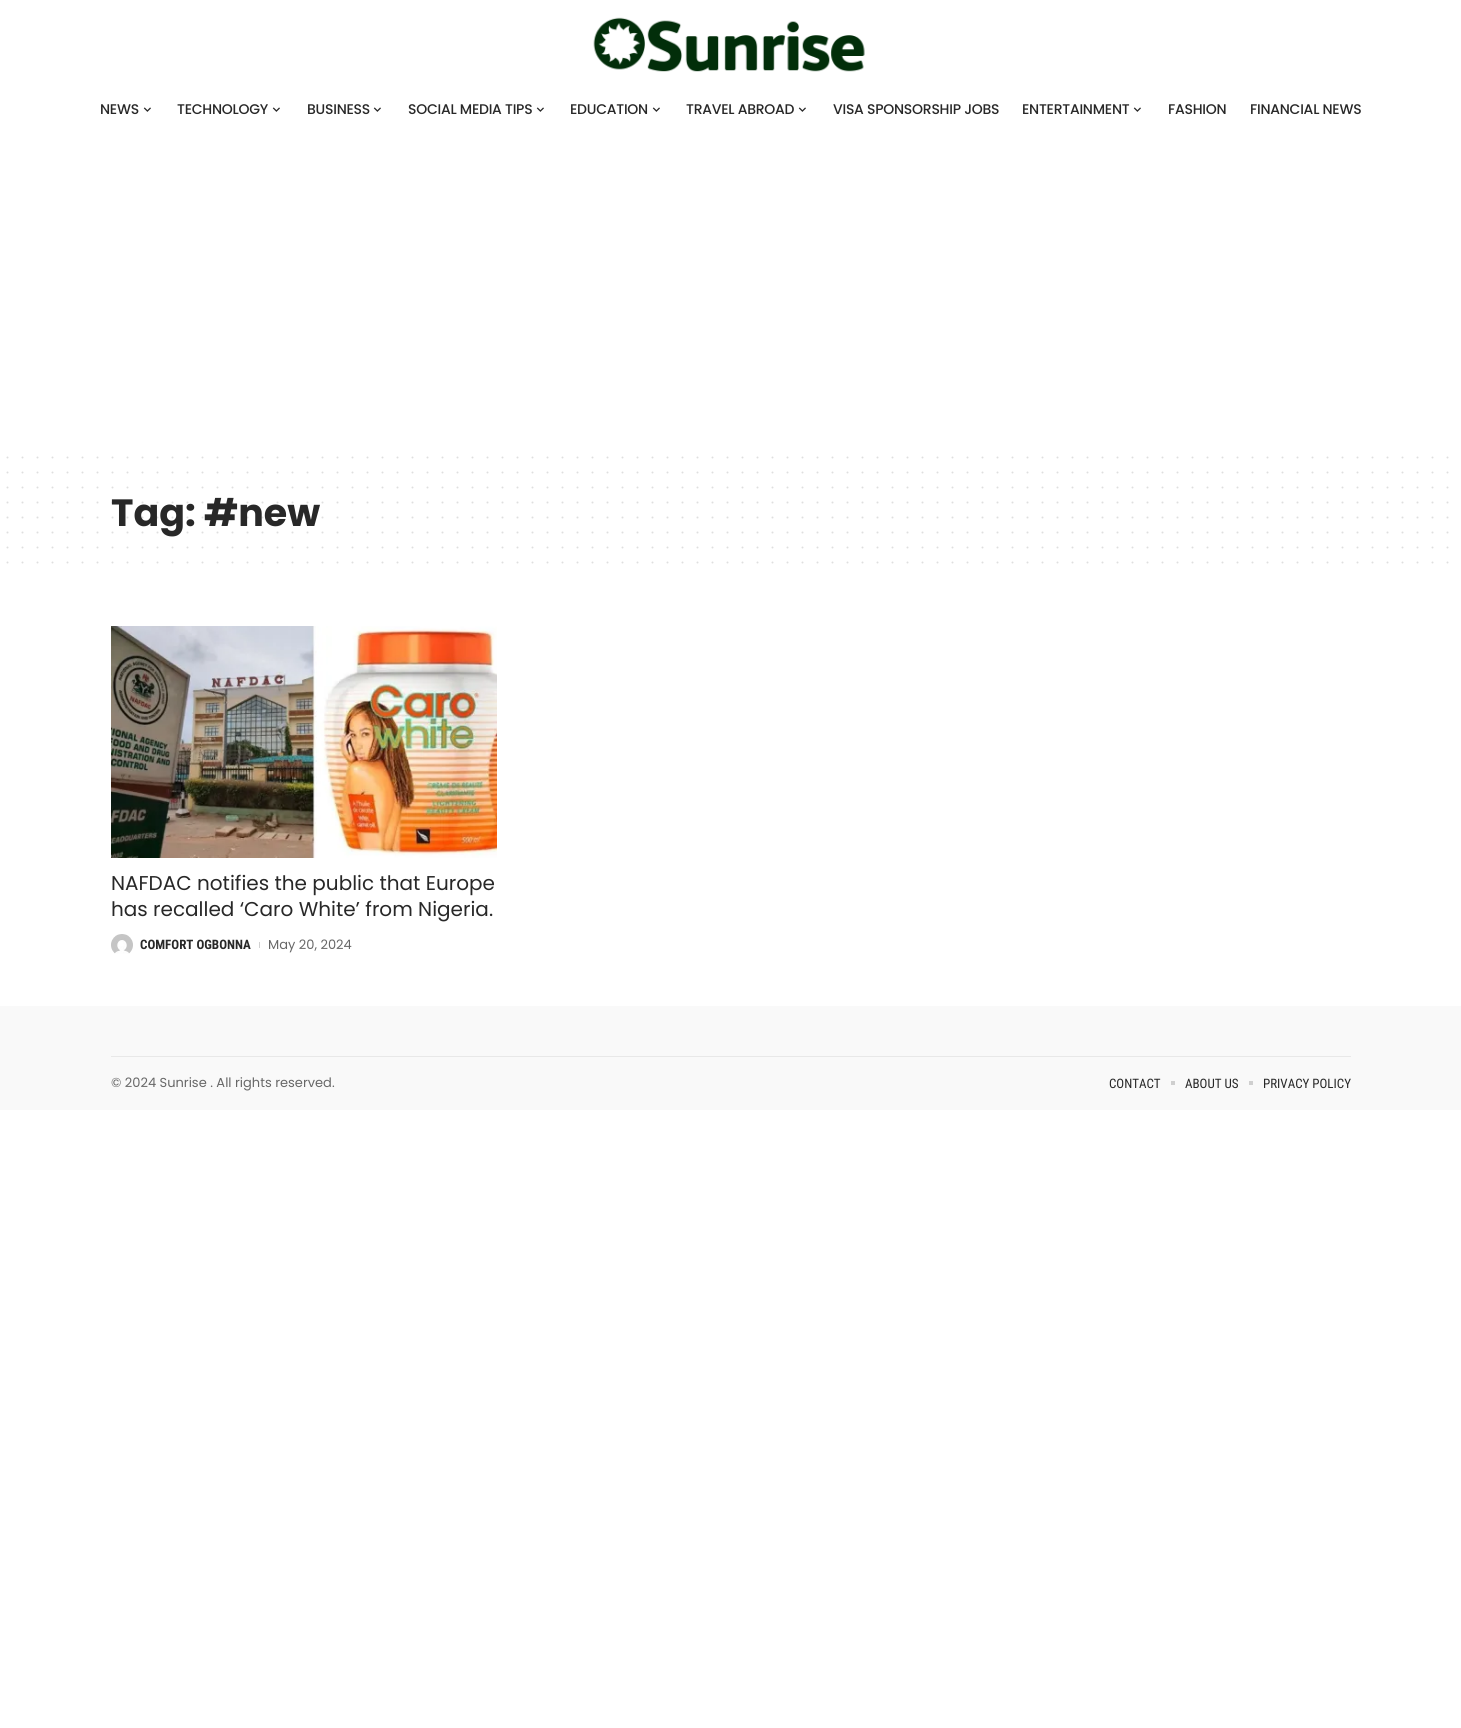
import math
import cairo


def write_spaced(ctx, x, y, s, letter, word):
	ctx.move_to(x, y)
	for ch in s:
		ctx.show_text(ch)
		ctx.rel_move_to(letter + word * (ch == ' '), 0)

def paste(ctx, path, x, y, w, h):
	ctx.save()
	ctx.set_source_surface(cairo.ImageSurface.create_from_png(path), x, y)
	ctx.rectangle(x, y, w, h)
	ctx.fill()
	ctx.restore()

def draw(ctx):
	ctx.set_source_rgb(1, 1, 1)
	ctx.paint()
	paste(ctx, 'media/1.png', 593, 17, 272, 55)
	ctx.select_font_face('Poppins Medium')
	ctx.set_font_size(14)
	ctx.set_source_rgb(0.157, 0.157, 0.157)
	write_spaced(ctx, 100, 114, 'NEWS', -0.25, 0)
	paste(ctx, 'media/2.png', 143, 107, 8, 5)
	write_spaced(ctx, 177, 114, 'TECHNOLOGY', -0.25, 0)
	paste(ctx, 'media/2.png', 272, 107, 8, 5)
	write_spaced(ctx, 307, 114, 'BUSINESS', -0.25, 0)
	paste(ctx, 'media/2.png', 373, 107, 8, 5)
	write_spaced(ctx, 408, 114, 'SOCIAL MEDIA TIPS', -0.25, 0)
	paste(ctx, 'media/2.png', 536, 107, 8, 5)
	write_spaced(ctx, 570, 114, 'EDUCATION', -0.25, 0)
	paste(ctx, 'media/2.png', 652, 107, 8, 5)
	write_spaced(ctx, 686, 114, 'TRAVEL ABROAD', -0.25, 0)
	paste(ctx, 'media/2.png', 798, 107, 8, 5)
	write_spaced(ctx, 833, 114, 'VISA SPONSORSHIP JOBS', -0.25, 0)
	write_spaced(ctx, 1022, 114, 'ENTERTAINMENT', -0.25, 0)
	paste(ctx, 'media/2.png', 1133, 107, 8, 5)
	write_spaced(ctx, 1168, 114, 'FASHION', -0.25, 0)
	write_spaced(ctx, 1250, 114, 'FINANCIAL NEWS', -0.25, 0)
	ctx.new_path()
	ctx.move_to(7.5, 457.5)
	ctx.line_to(1447.7, 457.5)
	ctx.set_source_rgb(0.875, 0.875, 0.875)
	ctx.set_line_cap(cairo.LINE_CAP_ROUND)
	ctx.set_dash([0, 15])
	ctx.stroke()
	ctx.new_path()
	ctx.move_to(7.5, 472.5)
	ctx.line_to(1447.7, 472.5)
	ctx.stroke()
	ctx.new_path()
	ctx.move_to(7.5, 487.5)
	ctx.line_to(1447.7, 487.5)
	ctx.stroke()
	ctx.select_font_face('Poppins', cairo.FONT_SLANT_NORMAL, cairo.FONT_WEIGHT_BOLD)
	ctx.set_font_size(38)
	ctx.set_source_rgb(0.157, 0.157, 0.157)
	ctx.move_to(111, 526)
	ctx.show_text('Tag: #new')
	ctx.new_path()
	ctx.move_to(7.5, 502.5)
	ctx.line_to(1447.7, 502.5)
	ctx.set_source_rgba(0.157, 0.157, 0.157, 0.15)
	ctx.stroke()
	ctx.new_path()
	ctx.move_to(7.5, 517.5)
	ctx.line_to(1447.7, 517.5)
	ctx.stroke()
	ctx.new_path()
	ctx.move_to(7.5, 532.5)
	ctx.line_to(1447.7, 532.5)
	ctx.stroke()
	ctx.new_path()
	ctx.move_to(7.5, 547.5)
	ctx.line_to(1447.7, 547.5)
	ctx.set_source_rgb(0.875, 0.875, 0.875)
	ctx.stroke()
	ctx.new_path()
	ctx.move_to(7.5, 562.5)
	ctx.line_to(1447.7, 562.5)
	ctx.stroke()
	paste(ctx, 'media/3.png', 111, 626, 386, 232)
	ctx.select_font_face('Poppins')
	ctx.set_font_size(20)
	ctx.set_source_rgb(0.157, 0.157, 0.157)
	ctx.move_to(111, 890)
	ctx.show_text('NAFDAC notifies the public that Europe')
	ctx.move_to(111, 916)
	ctx.show_text('has recalled ‘Caro White’ from Nigeria.')
	paste(ctx, 'media/4.png', 111, 934, 22, 20)
	ctx.select_font_face('Roboto Condensed', cairo.FONT_SLANT_NORMAL, cairo.FONT_WEIGHT_BOLD)
	ctx.set_font_size(13)
	ctx.move_to(140, 949)
	ctx.show_text('COMFORT OGBONNA')
	ctx.set_source_rgb(0.82, 0.82, 0.82)
	ctx.rectangle(259, 942, 1, 6)
	ctx.fill()
	ctx.select_font_face('Poppins')
	ctx.set_source_rgb(0.404, 0.404, 0.404)
	ctx.move_to(268, 949)
	ctx.show_text('May 20, 2024')
	ctx.set_source_rgb(0.976, 0.976, 0.976)
	ctx.rectangle(0, 1006, 1461, 104)
	ctx.fill()
	ctx.set_source_rgb(0.91, 0.91, 0.91)
	ctx.rectangle(111, 1056, 1240, 1)
	ctx.fill()
	ctx.set_source_rgb(0.404, 0.404, 0.404)
	ctx.move_to(111, 1087)
	ctx.show_text('© 2024 Sunrise . All rights reserved.')
	ctx.select_font_face('Roboto Condensed')
	ctx.set_source_rgb(0.157, 0.157, 0.157)
	ctx.move_to(1109, 1088)
	ctx.show_text('CONTACT')
	ctx.set_source_rgb(0.812, 0.812, 0.812)
	ctx.rectangle(1171, 1081, 4, 4)
	ctx.fill()
	ctx.set_source_rgb(0.157, 0.157, 0.157)
	ctx.move_to(1185, 1088)
	ctx.show_text('ABOUT US')
	ctx.set_source_rgb(0.812, 0.812, 0.812)
	ctx.rectangle(1249, 1081, 4, 4)
	ctx.fill()
	ctx.set_source_rgb(0.157, 0.157, 0.157)
	ctx.move_to(1263, 1088)
	ctx.show_text('PRIVACY POLICY')


surface = cairo.ImageSurface(cairo.FORMAT_RGB24, 1461, 1728)
ctx = cairo.Context(surface)
options = cairo.FontOptions()
options.set_hint_metrics(cairo.HINT_METRICS_OFF)
options.set_hint_style(cairo.HINT_STYLE_NONE)
ctx.set_font_options(options)
ctx.set_miter_limit(4)
draw(ctx)
surface.write_to_png('image.png')
